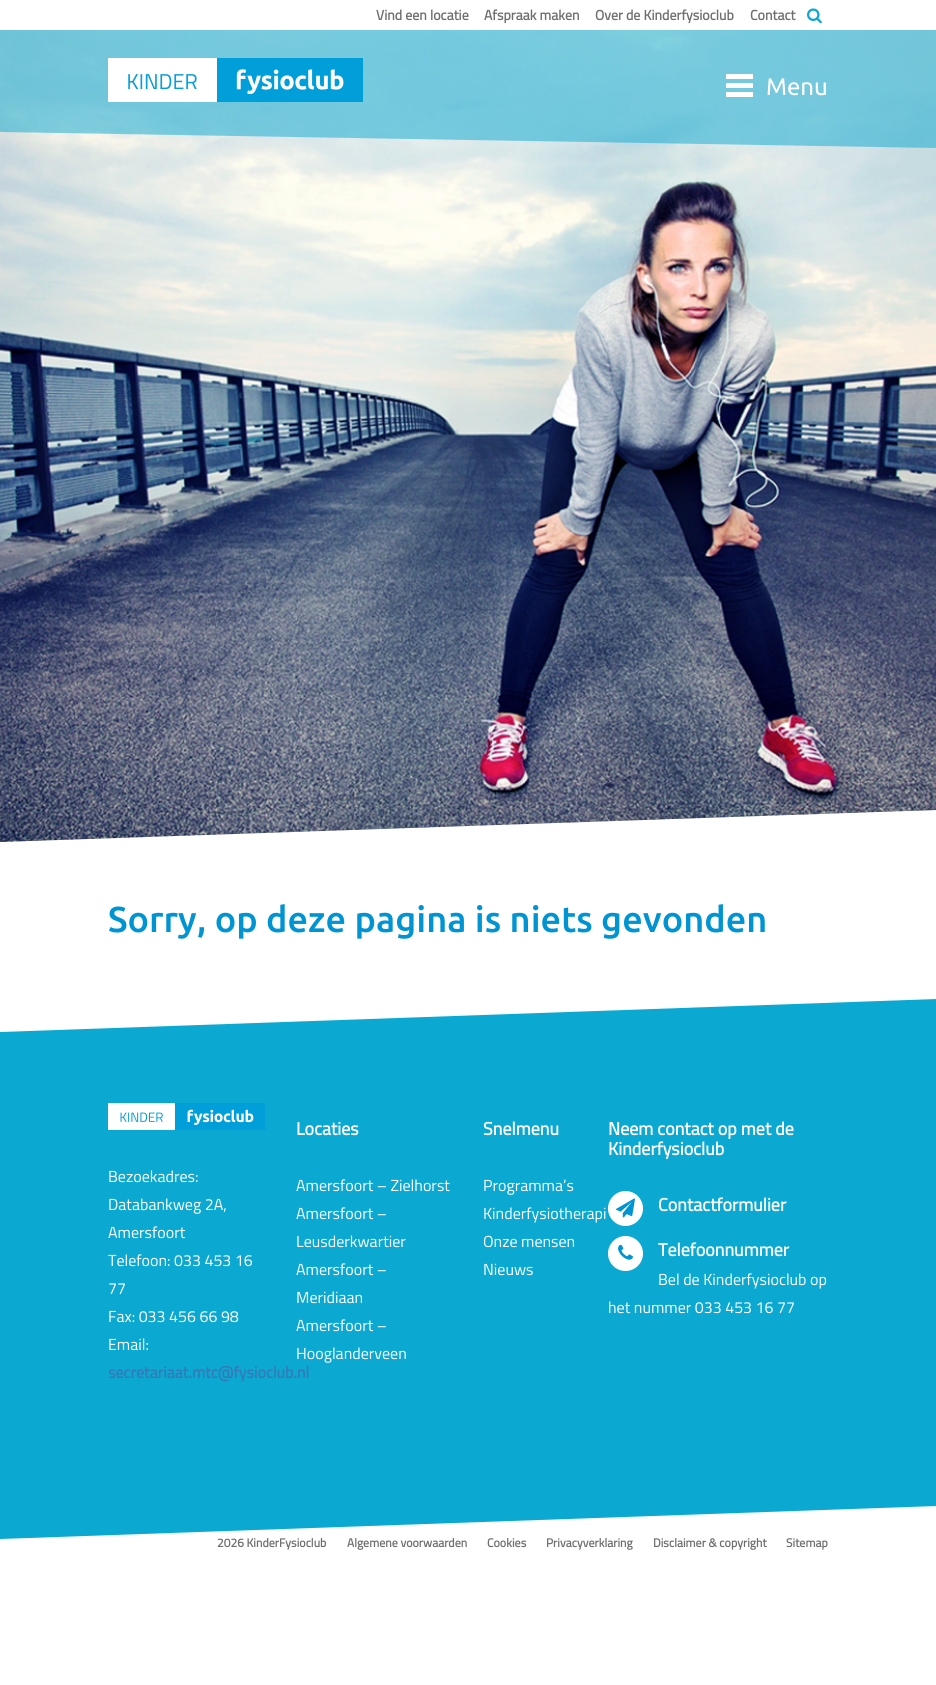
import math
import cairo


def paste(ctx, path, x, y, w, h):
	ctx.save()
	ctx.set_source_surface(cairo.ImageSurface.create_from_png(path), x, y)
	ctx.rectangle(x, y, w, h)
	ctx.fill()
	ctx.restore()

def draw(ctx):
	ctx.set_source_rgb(1, 1, 1)
	ctx.paint()
	paste(ctx, 'media/3.png', 0, 30, 936, 812)
	ctx.set_source_rgba(0.043, 0.663, 0.82, 0.5)
	ctx.new_path()
	ctx.move_to(0, -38)
	ctx.line_to(936, -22)
	ctx.line_to(936, 148)
	ctx.line_to(0, 132)
	ctx.close_path()
	ctx.fill()
	ctx.set_source_rgb(1, 1, 1)
	ctx.rectangle(0, 0, 936, 30)
	ctx.fill()
	ctx.select_font_face('Titillium Web', cairo.FONT_SLANT_NORMAL, cairo.FONT_WEIGHT_BOLD)
	ctx.set_font_size(14)
	ctx.set_source_rgb(0.439, 0.435, 0.435)
	for x, y, s in [
		(376, 20, 'Vind een locatie'),
		(484, 20, 'Afspraak maken'),
		(595, 20, 'Over de Kinderfysioclub'),
		(750, 20, 'Contact'),
	]:
		ctx.move_to(x, y)
		ctx.show_text(s)
	paste(ctx, 'media/1.png', 807, 8, 15, 16)
	paste(ctx, 'media/2.png', 108, 58, 255, 44)
	ctx.set_source_rgb(1, 1, 1)
	ctx.rectangle(726, 74, 27, 5)
	ctx.fill()
	ctx.rectangle(726, 83, 27, 5)
	ctx.fill()
	ctx.select_font_face('Ubuntu')
	ctx.set_font_size(24)
	ctx.move_to(766, 95)
	ctx.show_text('Menu')
	ctx.rectangle(726, 92, 27, 5)
	ctx.fill()
	ctx.new_path()
	ctx.move_to(0, 842)
	ctx.line_to(936, 810)
	ctx.line_to(936, 999)
	ctx.line_to(0, 1032)
	ctx.close_path()
	ctx.fill()
	ctx.select_font_face('Ubuntu Medium')
	ctx.set_font_size(36)
	ctx.set_source_rgb(0, 0.58, 0.824)
	ctx.move_to(108, 932)
	ctx.show_text('Sorry, op deze pagina is niets gevonden')
	ctx.select_font_face('Titillium Web', cairo.FONT_SLANT_NORMAL, cairo.FONT_WEIGHT_BOLD)
	ctx.set_font_size(12)
	ctx.set_source_rgb(0.439, 0.435, 0.435)
	for x, y, s in [
		(217, 1547, '2026 KinderFysioclub'),
		(347, 1547, 'Algemene voorwaarden'),
		(487, 1547, 'Cookies'),
		(546, 1547, 'Privacyverklaring'),
		(653, 1547, 'Disclaimer & copyright'),
		(786, 1547, 'Sitemap'),
	]:
		ctx.move_to(x, y)
		ctx.show_text(s)
	ctx.set_source_rgb(0.043, 0.663, 0.82)
	ctx.new_path()
	ctx.move_to(0, 1032)
	ctx.line_to(936, 999)
	ctx.line_to(936, 1506)
	ctx.line_to(0, 1539)
	ctx.close_path()
	ctx.fill()
	paste(ctx, 'media/4.png', 108, 1103, 157, 27)
	ctx.select_font_face('Titillium Web')
	ctx.set_font_size(16)
	ctx.set_source_rgb(1, 1, 1)
	for x, y, s in [
		(108, 1182, 'Bezoekadres:'),
		(108, 1210, 'Databankweg 2A,'),
		(108, 1238, 'Amersfoort'),
		(108, 1266, 'Telefoon: 033 453 16'),
		(108, 1294, '77'),
		(108, 1322, 'Fax: 033 456 66 98'),
		(108, 1350, 'Email:'),
	]:
		ctx.move_to(x, y)
		ctx.show_text(s)
	ctx.select_font_face('Titillium Web', cairo.FONT_SLANT_NORMAL, cairo.FONT_WEIGHT_BOLD)
	ctx.set_source_rgb(0.2, 0.478, 0.718)
	ctx.move_to(108, 1378)
	ctx.show_text('secretariaat.mtc@fysioclub.nl')
	ctx.set_font_size(18)
	ctx.set_source_rgb(1, 1, 1)
	ctx.move_to(296, 1135)
	ctx.show_text('Locaties')
	ctx.select_font_face('Titillium Web')
	ctx.set_font_size(16)
	for x, y, s in [
		(296, 1191, 'Amersfoort – Zielhorst'),
		(296, 1219, 'Amersfoort –'),
		(296, 1247, 'Leusderkwartier'),
		(296, 1275, 'Amersfoort –'),
		(296, 1303, 'Meridiaan'),
		(296, 1331, 'Amersfoort –'),
		(296, 1359, 'Hooglanderveen'),
	]:
		ctx.move_to(x, y)
		ctx.show_text(s)
	ctx.select_font_face('Titillium Web', cairo.FONT_SLANT_NORMAL, cairo.FONT_WEIGHT_BOLD)
	ctx.set_font_size(18)
	ctx.move_to(483, 1135)
	ctx.show_text('Snelmenu')
	ctx.select_font_face('Titillium Web')
	ctx.set_font_size(16)
	for x, y, s in [
		(483, 1191, 'Programma’s'),
		(483, 1219, 'Kinderfysiotherapi'),
		(483, 1247, 'Onze mensen'),
		(483, 1275, 'Nieuws'),
	]:
		ctx.move_to(x, y)
		ctx.show_text(s)
	ctx.select_font_face('Titillium Web', cairo.FONT_SLANT_NORMAL, cairo.FONT_WEIGHT_BOLD)
	ctx.set_font_size(18)
	ctx.move_to(608, 1135)
	ctx.show_text('Neem contact op met de')
	ctx.move_to(608, 1155)
	ctx.show_text('Kinderfysioclub')
	ctx.new_path()
	ctx.arc(625.5, 1208.5, 17.5, 0, 2 * math.pi)
	ctx.fill()
	paste(ctx, 'media/5.png', 616, 1198, 19, 20)
	ctx.move_to(658, 1211)
	ctx.show_text('Contactformulier')
	ctx.new_path()
	ctx.arc(625.5, 1253.5, 17.5, 0, 2 * math.pi)
	ctx.fill()
	paste(ctx, 'media/6.png', 618, 1244, 15, 16)
	ctx.move_to(658, 1256)
	ctx.show_text('Telefoonnummer')
	ctx.select_font_face('Titillium Web')
	ctx.set_font_size(16)
	ctx.move_to(658, 1285)
	ctx.show_text('Bel de Kinderfysioclub op')
	ctx.move_to(608, 1313)
	ctx.show_text('het nummer 033 453 16 77')


surface = cairo.ImageSurface(cairo.FORMAT_RGB24, 936, 1685)
ctx = cairo.Context(surface)
options = cairo.FontOptions()
options.set_hint_metrics(cairo.HINT_METRICS_OFF)
options.set_hint_style(cairo.HINT_STYLE_NONE)
ctx.set_font_options(options)
ctx.set_miter_limit(4)
draw(ctx)
surface.write_to_png('image.png')
